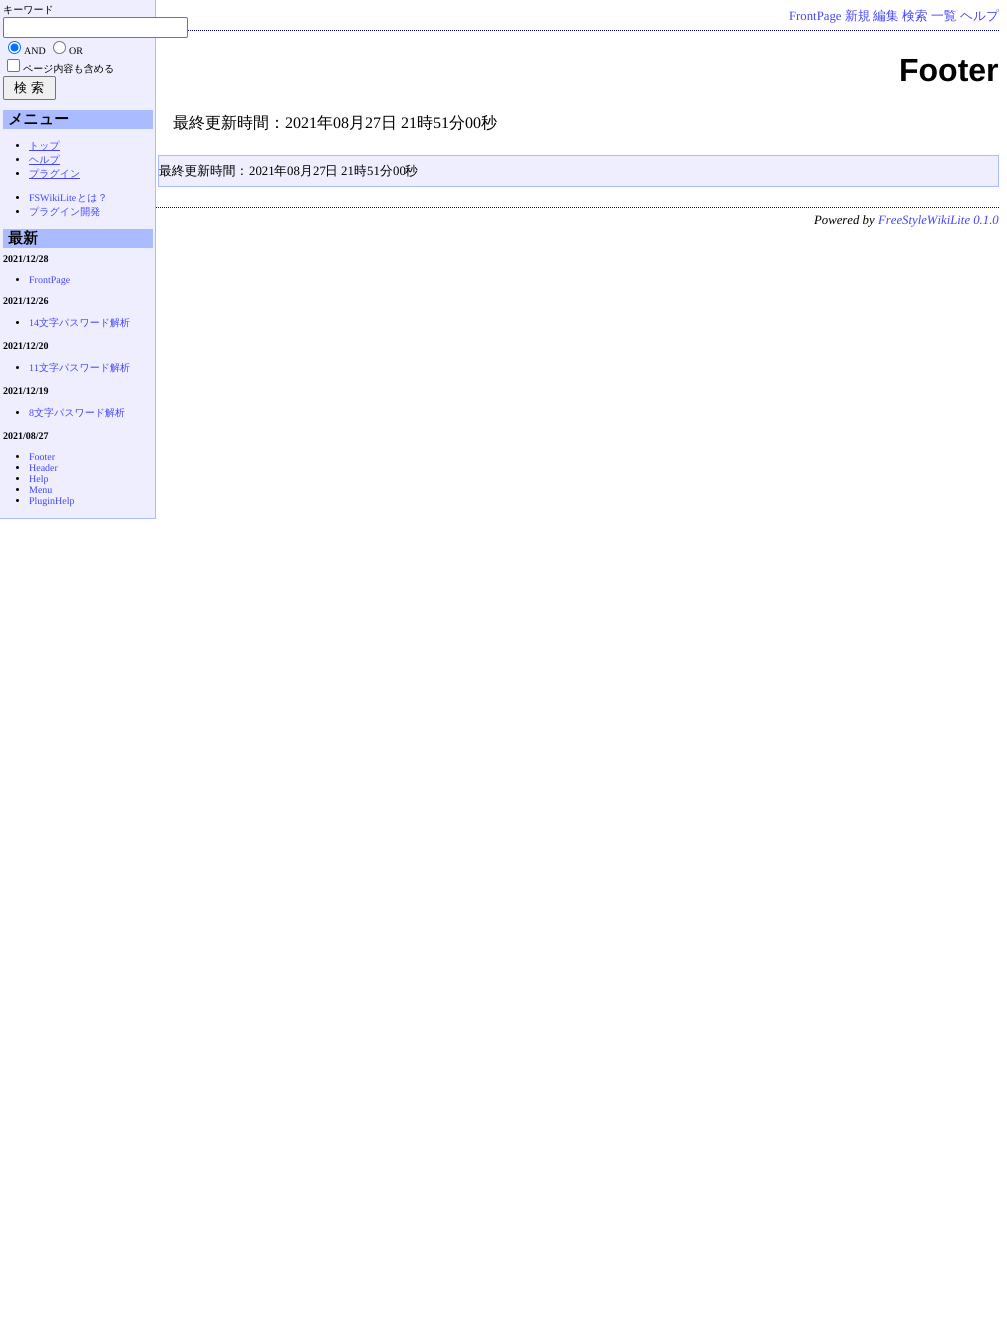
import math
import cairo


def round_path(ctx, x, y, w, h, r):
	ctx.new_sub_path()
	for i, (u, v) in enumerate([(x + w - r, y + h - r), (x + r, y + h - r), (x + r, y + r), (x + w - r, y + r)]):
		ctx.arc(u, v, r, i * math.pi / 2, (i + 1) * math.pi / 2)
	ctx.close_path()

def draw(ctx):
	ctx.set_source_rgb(1, 1, 1)
	ctx.paint()
	ctx.new_path()
	ctx.move_to(8, 30.5)
	ctx.line_to(999, 30.5)
	ctx.set_source_rgb(0, 0, 0.533)
	ctx.set_line_width(1)
	ctx.set_dash([1, 1])
	ctx.stroke()
	ctx.new_path()
	ctx.move_to(8, 207.5)
	ctx.line_to(999, 207.5)
	ctx.stroke()
	ctx.set_source_rgb(0.933, 0.933, 1)
	ctx.rectangle(0, 0, 155, 518)
	ctx.fill()
	ctx.set_source_rgb(0.667, 0.733, 1)
	ctx.rectangle(155, 0, 1, 519)
	ctx.rectangle(0, 518, 156, 1)
	ctx.fill()
	ctx.select_font_face('WenQuanYi Zen Hei Medium')
	ctx.set_font_size(10)
	ctx.set_source_rgb(0, 0, 0)
	ctx.move_to(3, 13)
	ctx.show_text('キーワード')
	ctx.set_source_rgb(1, 1, 1)
	round_path(ctx, 3.5, 17.5, 184, 20, 1.5)
	ctx.fill_preserve()
	ctx.set_source_rgb(0.463, 0.463, 0.463)
	ctx.set_dash([])
	ctx.stroke()
	ctx.set_source_rgb(1, 1, 1)
	ctx.arc(14.5, 47.5, 6, 0, 2 * math.pi)
	ctx.fill_preserve()
	ctx.set_source_rgb(0, 0.459, 1)
	ctx.stroke()
	ctx.arc(14.5, 47.5, 4, 0, 2 * math.pi)
	ctx.fill()
	ctx.select_font_face('Liberation Serif')
	ctx.set_source_rgb(0, 0, 0)
	ctx.move_to(24, 54)
	ctx.show_text('AND')
	ctx.set_source_rgb(1, 1, 1)
	ctx.new_path()
	ctx.arc(59.5, 47.5, 6, 0, 2 * math.pi)
	ctx.fill_preserve()
	ctx.set_source_rgb(0.463, 0.463, 0.463)
	ctx.stroke()
	ctx.set_source_rgb(0, 0, 0)
	ctx.move_to(69, 54)
	ctx.show_text('OR')
	ctx.set_source_rgb(1, 1, 1)
	round_path(ctx, 7.5, 59.5, 12, 12, 1.5)
	ctx.fill_preserve()
	ctx.set_source_rgb(0.463, 0.463, 0.463)
	ctx.stroke()
	ctx.select_font_face('WenQuanYi Zen Hei Medium')
	ctx.set_source_rgb(0, 0, 0)
	ctx.move_to(23, 72)
	ctx.show_text('ページ内容も含める')
	ctx.set_source_rgb(0.937, 0.937, 0.937)
	round_path(ctx, 3.5, 76.5, 52, 23, 1.5)
	ctx.fill_preserve()
	ctx.set_source_rgb(0.463, 0.463, 0.463)
	ctx.stroke()
	ctx.set_font_size(13)
	ctx.set_source_rgb(0, 0, 0)
	ctx.move_to(14, 92)
	ctx.show_text('検 索')
	ctx.set_source_rgb(0.667, 0.733, 1)
	ctx.rectangle(3, 110, 150, 19)
	ctx.fill()
	ctx.select_font_face('WenQuanYi Zen Hei', cairo.FONT_SLANT_NORMAL, cairo.FONT_WEIGHT_BOLD)
	ctx.set_font_size(15)
	ctx.set_source_rgb(0, 0, 0)
	ctx.move_to(8, 124)
	ctx.show_text('メニュー')
	ctx.new_path()
	ctx.arc(17.5, 145.5, 1.5, 0, 2 * math.pi)
	ctx.fill()
	ctx.set_source_rgb(0.267, 0.267, 1)
	ctx.rectangle(29, 150, 31, 1)
	ctx.fill()
	ctx.select_font_face('WenQuanYi Zen Hei Medium')
	ctx.set_font_size(10)
	ctx.move_to(29, 149)
	ctx.show_text('トップ')
	ctx.set_source_rgb(0, 0, 0)
	ctx.new_path()
	ctx.arc(17.5, 159.5, 1.5, 0, 2 * math.pi)
	ctx.fill()
	ctx.set_source_rgb(0.267, 0.267, 1)
	ctx.rectangle(29, 164, 31, 1)
	ctx.fill()
	ctx.move_to(29, 163)
	ctx.show_text('ヘルプ')
	ctx.set_source_rgb(0, 0, 0)
	ctx.new_path()
	ctx.arc(17.5, 173.5, 1.5, 0, 2 * math.pi)
	ctx.fill()
	ctx.set_source_rgb(0.267, 0.267, 1)
	ctx.rectangle(29, 178, 51, 1)
	ctx.fill()
	ctx.move_to(29, 177)
	ctx.show_text('プラグイン')
	ctx.set_source_rgb(0, 0, 0)
	ctx.new_path()
	ctx.arc(17.5, 197.5, 1.5, 0, 2 * math.pi)
	ctx.fill()
	ctx.select_font_face('Liberation Serif')
	ctx.set_source_rgb(0.267, 0.267, 1)
	ctx.move_to(29, 201)
	ctx.show_text('FSWikiLite')
	ctx.select_font_face('WenQuanYi Zen Hei Medium')
	ctx.move_to(77, 201)
	ctx.show_text('とは？')
	ctx.set_source_rgb(0, 0, 0)
	ctx.new_path()
	ctx.arc(17.5, 211.5, 1.5, 0, 2 * math.pi)
	ctx.fill()
	ctx.set_source_rgb(0.267, 0.267, 1)
	ctx.move_to(29, 215)
	ctx.show_text('プラグイン開発')
	ctx.set_source_rgb(0.667, 0.733, 1)
	ctx.rectangle(3, 229, 150, 19)
	ctx.fill()
	ctx.select_font_face('WenQuanYi Zen Hei', cairo.FONT_SLANT_NORMAL, cairo.FONT_WEIGHT_BOLD)
	ctx.set_font_size(15)
	ctx.set_source_rgb(0, 0, 0)
	ctx.move_to(8, 243)
	ctx.show_text('最新')
	ctx.select_font_face('Liberation Serif', cairo.FONT_SLANT_NORMAL, cairo.FONT_WEIGHT_BOLD)
	ctx.set_font_size(10)
	ctx.move_to(3, 262)
	ctx.show_text('2021/12/28')
	ctx.new_path()
	ctx.arc(17.5, 279.5, 1.5, 0, 2 * math.pi)
	ctx.fill()
	ctx.select_font_face('Liberation Serif')
	ctx.set_source_rgb(0.267, 0.267, 1)
	ctx.move_to(29, 283)
	ctx.show_text('FrontPage')
	ctx.select_font_face('Liberation Serif', cairo.FONT_SLANT_NORMAL, cairo.FONT_WEIGHT_BOLD)
	ctx.set_source_rgb(0, 0, 0)
	ctx.move_to(3, 304)
	ctx.show_text('2021/12/26')
	ctx.new_path()
	ctx.arc(17.5, 322.5, 1.5, 0, 2 * math.pi)
	ctx.fill()
	ctx.select_font_face('Liberation Serif')
	ctx.set_source_rgb(0.267, 0.267, 1)
	ctx.move_to(29, 326)
	ctx.show_text('14')
	ctx.select_font_face('WenQuanYi Zen Hei Medium')
	ctx.move_to(39, 326)
	ctx.show_text('文字パスワード解析')
	ctx.select_font_face('Liberation Serif', cairo.FONT_SLANT_NORMAL, cairo.FONT_WEIGHT_BOLD)
	ctx.set_source_rgb(0, 0, 0)
	ctx.move_to(3, 349)
	ctx.show_text('2021/12/20')
	ctx.new_path()
	ctx.arc(17.5, 367.5, 1.5, 0, 2 * math.pi)
	ctx.fill()
	ctx.select_font_face('Liberation Serif')
	ctx.set_source_rgb(0.267, 0.267, 1)
	ctx.move_to(29, 371)
	ctx.show_text('11')
	ctx.select_font_face('WenQuanYi Zen Hei Medium')
	ctx.move_to(39, 371)
	ctx.show_text('文字パスワード解析')
	ctx.select_font_face('Liberation Serif', cairo.FONT_SLANT_NORMAL, cairo.FONT_WEIGHT_BOLD)
	ctx.set_source_rgb(0, 0, 0)
	ctx.move_to(3, 394)
	ctx.show_text('2021/12/19')
	ctx.new_path()
	ctx.arc(17.5, 412.5, 1.5, 0, 2 * math.pi)
	ctx.fill()
	ctx.select_font_face('Liberation Serif')
	ctx.set_source_rgb(0.267, 0.267, 1)
	ctx.move_to(29, 416)
	ctx.show_text('8')
	ctx.select_font_face('WenQuanYi Zen Hei Medium')
	ctx.move_to(34, 416)
	ctx.show_text('文字パスワード解析')
	ctx.select_font_face('Liberation Serif', cairo.FONT_SLANT_NORMAL, cairo.FONT_WEIGHT_BOLD)
	ctx.set_source_rgb(0, 0, 0)
	ctx.move_to(3, 439)
	ctx.show_text('2021/08/27')
	ctx.new_path()
	ctx.arc(17.5, 456.5, 1.5, 0, 2 * math.pi)
	ctx.fill()
	ctx.select_font_face('Liberation Serif')
	ctx.set_source_rgb(0.267, 0.267, 1)
	ctx.move_to(29, 460)
	ctx.show_text('Footer')
	ctx.set_source_rgb(0, 0, 0)
	ctx.new_path()
	ctx.arc(17.5, 467.5, 1.5, 0, 2 * math.pi)
	ctx.fill()
	ctx.set_source_rgb(0.267, 0.267, 1)
	ctx.move_to(29, 471)
	ctx.show_text('Header')
	ctx.set_source_rgb(0, 0, 0)
	ctx.new_path()
	ctx.arc(17.5, 478.5, 1.5, 0, 2 * math.pi)
	ctx.fill()
	ctx.set_source_rgb(0.267, 0.267, 1)
	ctx.move_to(29, 482)
	ctx.show_text('Help')
	ctx.set_source_rgb(0, 0, 0)
	ctx.new_path()
	ctx.arc(17.5, 489.5, 1.5, 0, 2 * math.pi)
	ctx.fill()
	ctx.set_source_rgb(0.267, 0.267, 1)
	ctx.move_to(29, 493)
	ctx.show_text('Menu')
	ctx.set_source_rgb(0, 0, 0)
	ctx.new_path()
	ctx.arc(17.5, 500.5, 1.5, 0, 2 * math.pi)
	ctx.fill()
	ctx.set_source_rgb(0.267, 0.267, 1)
	ctx.move_to(29, 504)
	ctx.show_text('PluginHelp')
	ctx.set_font_size(12.75)
	ctx.move_to(789, 20)
	ctx.show_text('FrontPage')
	ctx.select_font_face('WenQuanYi Zen Hei Medium')
	for x, y, s in [
		(845, 20, '新規'),
		(873, 20, '編集'),
		(902, 20, '検索'),
		(931, 20, '一覧'),
		(960, 20, 'ヘルプ'),
	]:
		ctx.move_to(x, y)
		ctx.show_text(s)
	ctx.select_font_face('Liberation Sans', cairo.FONT_SLANT_NORMAL, cairo.FONT_WEIGHT_BOLD)
	ctx.set_font_size(32)
	ctx.set_source_rgb(0, 0, 0)
	ctx.move_to(899, 81)
	ctx.show_text('Footer')
	ctx.select_font_face('WenQuanYi Zen Hei Medium')
	ctx.set_font_size(16)
	ctx.move_to(173, 128)
	ctx.show_text('最終更新時間：')
	ctx.select_font_face('Liberation Serif')
	ctx.move_to(285, 128)
	ctx.show_text('2021')
	ctx.select_font_face('WenQuanYi Zen Hei Medium')
	ctx.move_to(317, 128)
	ctx.show_text('年')
	ctx.select_font_face('Liberation Serif')
	ctx.move_to(333, 128)
	ctx.show_text('08')
	ctx.select_font_face('WenQuanYi Zen Hei Medium')
	ctx.move_to(349, 128)
	ctx.show_text('月')
	ctx.select_font_face('Liberation Serif')
	ctx.move_to(365, 128)
	ctx.show_text('27')
	ctx.select_font_face('WenQuanYi Zen Hei Medium')
	ctx.move_to(381, 128)
	ctx.show_text('日')
	ctx.select_font_face('Liberation Serif')
	ctx.move_to(401, 128)
	ctx.show_text('21')
	ctx.select_font_face('WenQuanYi Zen Hei Medium')
	ctx.move_to(417, 128)
	ctx.show_text('時')
	ctx.select_font_face('Liberation Serif')
	ctx.move_to(433, 128)
	ctx.show_text('51')
	ctx.select_font_face('WenQuanYi Zen Hei Medium')
	ctx.move_to(449, 128)
	ctx.show_text('分')
	ctx.select_font_face('Liberation Serif')
	ctx.move_to(465, 128)
	ctx.show_text('00')
	ctx.select_font_face('WenQuanYi Zen Hei Medium')
	ctx.move_to(481, 128)
	ctx.show_text('秒')
	ctx.set_source_rgb(0.933, 0.933, 1)
	ctx.rectangle(158.5, 155.5, 840, 31)
	ctx.fill_preserve()
	ctx.set_source_rgb(0.667, 0.733, 1)
	ctx.stroke()
	ctx.set_font_size(12.75)
	ctx.set_source_rgb(0, 0, 0)
	ctx.move_to(159, 175)
	ctx.show_text('最終更新時間：')
	ctx.select_font_face('Liberation Serif')
	ctx.move_to(249, 175)
	ctx.show_text('2021')
	ctx.select_font_face('WenQuanYi Zen Hei Medium')
	ctx.move_to(274, 175)
	ctx.show_text('年')
	ctx.select_font_face('Liberation Serif')
	ctx.move_to(287, 175)
	ctx.show_text('08')
	ctx.select_font_face('WenQuanYi Zen Hei Medium')
	ctx.move_to(300, 175)
	ctx.show_text('月')
	ctx.select_font_face('Liberation Serif')
	ctx.move_to(313, 175)
	ctx.show_text('27')
	ctx.select_font_face('WenQuanYi Zen Hei Medium')
	ctx.move_to(325, 175)
	ctx.show_text('日')
	ctx.select_font_face('Liberation Serif')
	ctx.move_to(341, 175)
	ctx.show_text('21')
	ctx.select_font_face('WenQuanYi Zen Hei Medium')
	ctx.move_to(354, 175)
	ctx.show_text('時')
	ctx.select_font_face('Liberation Serif')
	ctx.move_to(367, 175)
	ctx.show_text('51')
	ctx.select_font_face('WenQuanYi Zen Hei Medium')
	ctx.move_to(380, 175)
	ctx.show_text('分')
	ctx.select_font_face('Liberation Serif')
	ctx.move_to(393, 175)
	ctx.show_text('00')
	ctx.select_font_face('WenQuanYi Zen Hei Medium')
	ctx.move_to(405, 175)
	ctx.show_text('秒')
	ctx.select_font_face('Liberation Serif', cairo.FONT_SLANT_ITALIC)
	ctx.move_to(814, 224)
	ctx.show_text('Powered by')
	ctx.set_source_rgb(0.267, 0.267, 1)
	ctx.move_to(878, 224)
	ctx.show_text('FreeStyleWikiLite 0.1.0')


surface = cairo.ImageSurface(cairo.FORMAT_RGB24, 1007, 1327)
ctx = cairo.Context(surface)
options = cairo.FontOptions()
options.set_hint_metrics(cairo.HINT_METRICS_OFF)
options.set_hint_style(cairo.HINT_STYLE_NONE)
ctx.set_font_options(options)
ctx.set_miter_limit(4)
draw(ctx)
surface.write_to_png('image.png')
